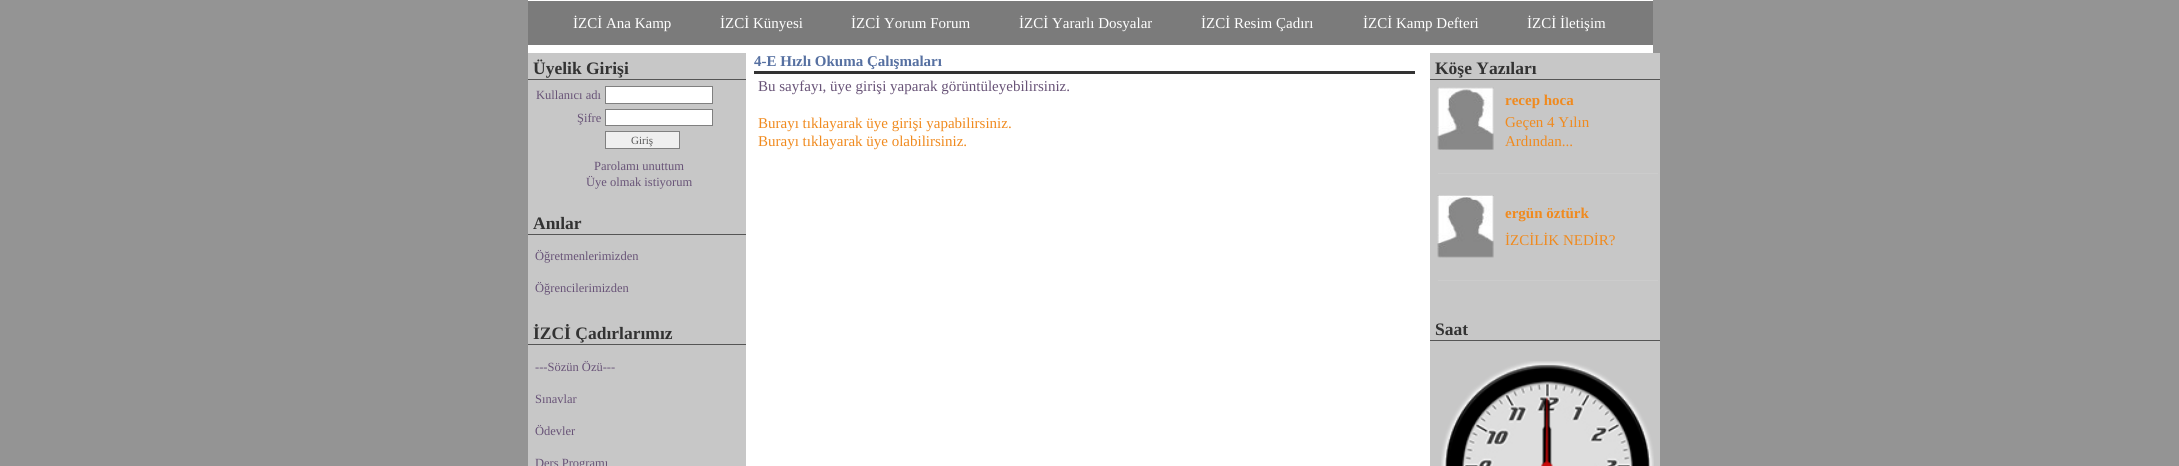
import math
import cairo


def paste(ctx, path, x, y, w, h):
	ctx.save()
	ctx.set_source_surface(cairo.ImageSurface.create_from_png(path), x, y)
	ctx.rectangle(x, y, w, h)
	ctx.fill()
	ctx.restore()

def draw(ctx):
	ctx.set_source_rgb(0.58, 0.58, 0.58)
	ctx.paint()
	ctx.set_source_rgb(1, 1, 1)
	ctx.rectangle(528, 0, 1125, 53)
	ctx.fill()
	ctx.set_source_rgb(0.482, 0.482, 0.482)
	ctx.rectangle(528, 1, 1125, 44)
	ctx.fill()
	ctx.select_font_face('Liberation Serif')
	ctx.set_font_size(15)
	ctx.set_source_rgb(1, 1, 1)
	for x, y, s in [
		(573, 28, 'İZCİ Ana Kamp'),
		(720, 28, 'İZCİ Künyesi'),
		(851, 28, 'İZCİ Yorum Forum'),
		(1019, 28, 'İZCİ Yararlı Dosyalar'),
		(1201, 28, 'İZCİ Resim Çadırı'),
		(1363, 28, 'İZCİ Kamp Defteri'),
		(1527, 28, 'İZCİ İletişim'),
	]:
		ctx.move_to(x, y)
		ctx.show_text(s)
	ctx.rectangle(746, 53, 684, 413)
	ctx.fill()
	ctx.set_source_rgb(0.78, 0.78, 0.78)
	ctx.rectangle(528, 53, 218, 413)
	ctx.fill()
	ctx.set_source_rgb(0.333, 0.333, 0.333)
	ctx.rectangle(528, 79, 218, 1)
	ctx.fill()
	ctx.select_font_face('Liberation Serif', cairo.FONT_SLANT_NORMAL, cairo.FONT_WEIGHT_BOLD)
	ctx.set_font_size(17.5)
	ctx.set_source_rgb(0.2, 0.2, 0.2)
	ctx.move_to(533, 74)
	ctx.show_text('Üyelik Girişi')
	ctx.select_font_face('Liberation Serif')
	ctx.set_font_size(12.5)
	ctx.set_source_rgb(0.408, 0.325, 0.467)
	ctx.move_to(536, 99)
	ctx.show_text('Kullanıcı adı')
	ctx.set_source_rgb(1, 1, 1)
	ctx.rectangle(605.5, 86.5, 107, 17)
	ctx.fill_preserve()
	ctx.set_source_rgb(0.502, 0.502, 0.502)
	ctx.set_line_width(1)
	ctx.stroke()
	ctx.set_source_rgb(0.408, 0.325, 0.467)
	ctx.move_to(577, 122)
	ctx.show_text('Şifre')
	ctx.set_source_rgb(1, 1, 1)
	ctx.rectangle(605.5, 109.5, 107, 16)
	ctx.fill_preserve()
	ctx.set_source_rgb(0.502, 0.502, 0.502)
	ctx.stroke()
	ctx.set_source_rgb(0.937, 0.937, 0.937)
	ctx.rectangle(605.5, 131.5, 74, 17)
	ctx.fill_preserve()
	ctx.set_source_rgb(0.502, 0.502, 0.502)
	ctx.stroke()
	ctx.set_font_size(11)
	ctx.set_source_rgb(0.345, 0.345, 0.345)
	ctx.move_to(631, 144)
	ctx.show_text('Giriş')
	ctx.set_font_size(12.5)
	ctx.set_source_rgb(0.408, 0.325, 0.467)
	ctx.move_to(594, 170)
	ctx.show_text('Parolamı unuttum')
	ctx.move_to(586, 186)
	ctx.show_text('Üye olmak istiyorum')
	ctx.set_source_rgb(0.333, 0.333, 0.333)
	ctx.rectangle(528, 234, 218, 1)
	ctx.fill()
	ctx.select_font_face('Liberation Serif', cairo.FONT_SLANT_NORMAL, cairo.FONT_WEIGHT_BOLD)
	ctx.set_font_size(17.5)
	ctx.set_source_rgb(0.2, 0.2, 0.2)
	ctx.move_to(533, 229)
	ctx.show_text('Anılar')
	ctx.select_font_face('Liberation Serif')
	ctx.set_font_size(12.5)
	ctx.set_source_rgb(0.408, 0.325, 0.467)
	ctx.move_to(535, 260)
	ctx.show_text('Öğretmenlerimizden')
	ctx.move_to(535, 292)
	ctx.show_text('Öğrencilerimizden')
	ctx.set_source_rgb(0.333, 0.333, 0.333)
	ctx.rectangle(528, 344, 218, 1)
	ctx.fill()
	ctx.select_font_face('Liberation Serif', cairo.FONT_SLANT_NORMAL, cairo.FONT_WEIGHT_BOLD)
	ctx.set_font_size(17.5)
	ctx.set_source_rgb(0.2, 0.2, 0.2)
	ctx.move_to(533, 339)
	ctx.show_text('İZCİ Çadırlarımız')
	ctx.select_font_face('Liberation Serif')
	ctx.set_font_size(12.5)
	ctx.set_source_rgb(0.408, 0.325, 0.467)
	for x, y, s in [
		(535, 371, '---Sözün Özü---'),
		(535, 403, 'Sınavlar'),
		(535, 435, 'Ödevler'),
		(535, 467, 'Ders Programı'),
	]:
		ctx.move_to(x, y)
		ctx.show_text(s)
	ctx.set_source_rgb(0.2, 0.2, 0.2)
	ctx.rectangle(754, 71, 661, 3)
	ctx.fill()
	ctx.select_font_face('Liberation Serif', cairo.FONT_SLANT_NORMAL, cairo.FONT_WEIGHT_BOLD)
	ctx.set_font_size(15)
	ctx.set_source_rgb(0.337, 0.439, 0.631)
	ctx.move_to(754, 66)
	ctx.show_text('4-E Hızlı Okuma Çalışmaları')
	ctx.select_font_face('Liberation Serif')
	ctx.set_source_rgb(0.408, 0.325, 0.467)
	ctx.move_to(758, 91)
	ctx.show_text('Bu sayfayı, üye girişi yaparak görüntüleyebilirsiniz.')
	ctx.set_source_rgb(0.941, 0.541, 0.118)
	ctx.move_to(758, 128)
	ctx.show_text('Burayı tıklayarak üye girişi yapabilirsiniz.')
	ctx.move_to(758, 146)
	ctx.show_text('Burayı tıklayarak üye olabilirsiniz.')
	ctx.set_source_rgb(0.78, 0.78, 0.78)
	ctx.rectangle(1430, 53, 230, 413)
	ctx.fill()
	ctx.set_source_rgb(0.333, 0.333, 0.333)
	ctx.rectangle(1430, 79, 230, 1)
	ctx.fill()
	ctx.select_font_face('Liberation Serif', cairo.FONT_SLANT_NORMAL, cairo.FONT_WEIGHT_BOLD)
	ctx.set_font_size(17.5)
	ctx.set_source_rgb(0.2, 0.2, 0.2)
	ctx.move_to(1435, 74)
	ctx.show_text('Köşe Yazıları')
	paste(ctx, 'media/1.png', 1437, 87, 57, 63)
	ctx.set_font_size(15)
	ctx.set_source_rgb(0.941, 0.541, 0.118)
	ctx.move_to(1505, 105)
	ctx.show_text('recep hoca')
	ctx.select_font_face('Liberation Serif')
	ctx.move_to(1505, 127)
	ctx.show_text('Geçen 4 Yılın')
	ctx.move_to(1505, 146)
	ctx.show_text('Ardından...')
	ctx.set_source_rgb(0.8, 0.8, 0.8)
	ctx.rectangle(1438, 173, 220, 1)
	ctx.fill()
	paste(ctx, 'media/2.png', 1437, 195, 57, 63)
	ctx.select_font_face('Liberation Serif', cairo.FONT_SLANT_NORMAL, cairo.FONT_WEIGHT_BOLD)
	ctx.set_source_rgb(0.941, 0.541, 0.118)
	ctx.move_to(1505, 218)
	ctx.show_text('ergün öztürk')
	ctx.select_font_face('Liberation Serif')
	ctx.move_to(1505, 245)
	ctx.show_text('İZCİLİK NEDİR?')
	ctx.set_source_rgb(0.8, 0.8, 0.8)
	ctx.rectangle(1438, 280, 220, 1)
	ctx.fill()
	ctx.set_source_rgb(0.333, 0.333, 0.333)
	ctx.rectangle(1430, 340, 230, 1)
	ctx.fill()
	ctx.select_font_face('Liberation Serif', cairo.FONT_SLANT_NORMAL, cairo.FONT_WEIGHT_BOLD)
	ctx.set_font_size(17.5)
	ctx.set_source_rgb(0.2, 0.2, 0.2)
	ctx.move_to(1435, 335)
	ctx.show_text('Saat')
	paste(ctx, 'media/3.png', 1441, 361, 213, 105)
	paste(ctx, 'media/6.png', 1542, 425, 10, 41)
	paste(ctx, 'media/5.png', 1543, 398, 8, 68)
	paste(ctx, 'media/4.png', 1541, 397, 12, 69)


surface = cairo.ImageSurface(cairo.FORMAT_RGB24, 2179, 466)
ctx = cairo.Context(surface)
options = cairo.FontOptions()
options.set_hint_metrics(cairo.HINT_METRICS_OFF)
options.set_hint_style(cairo.HINT_STYLE_NONE)
ctx.set_font_options(options)
ctx.set_miter_limit(4)
draw(ctx)
surface.write_to_png('image.png')
